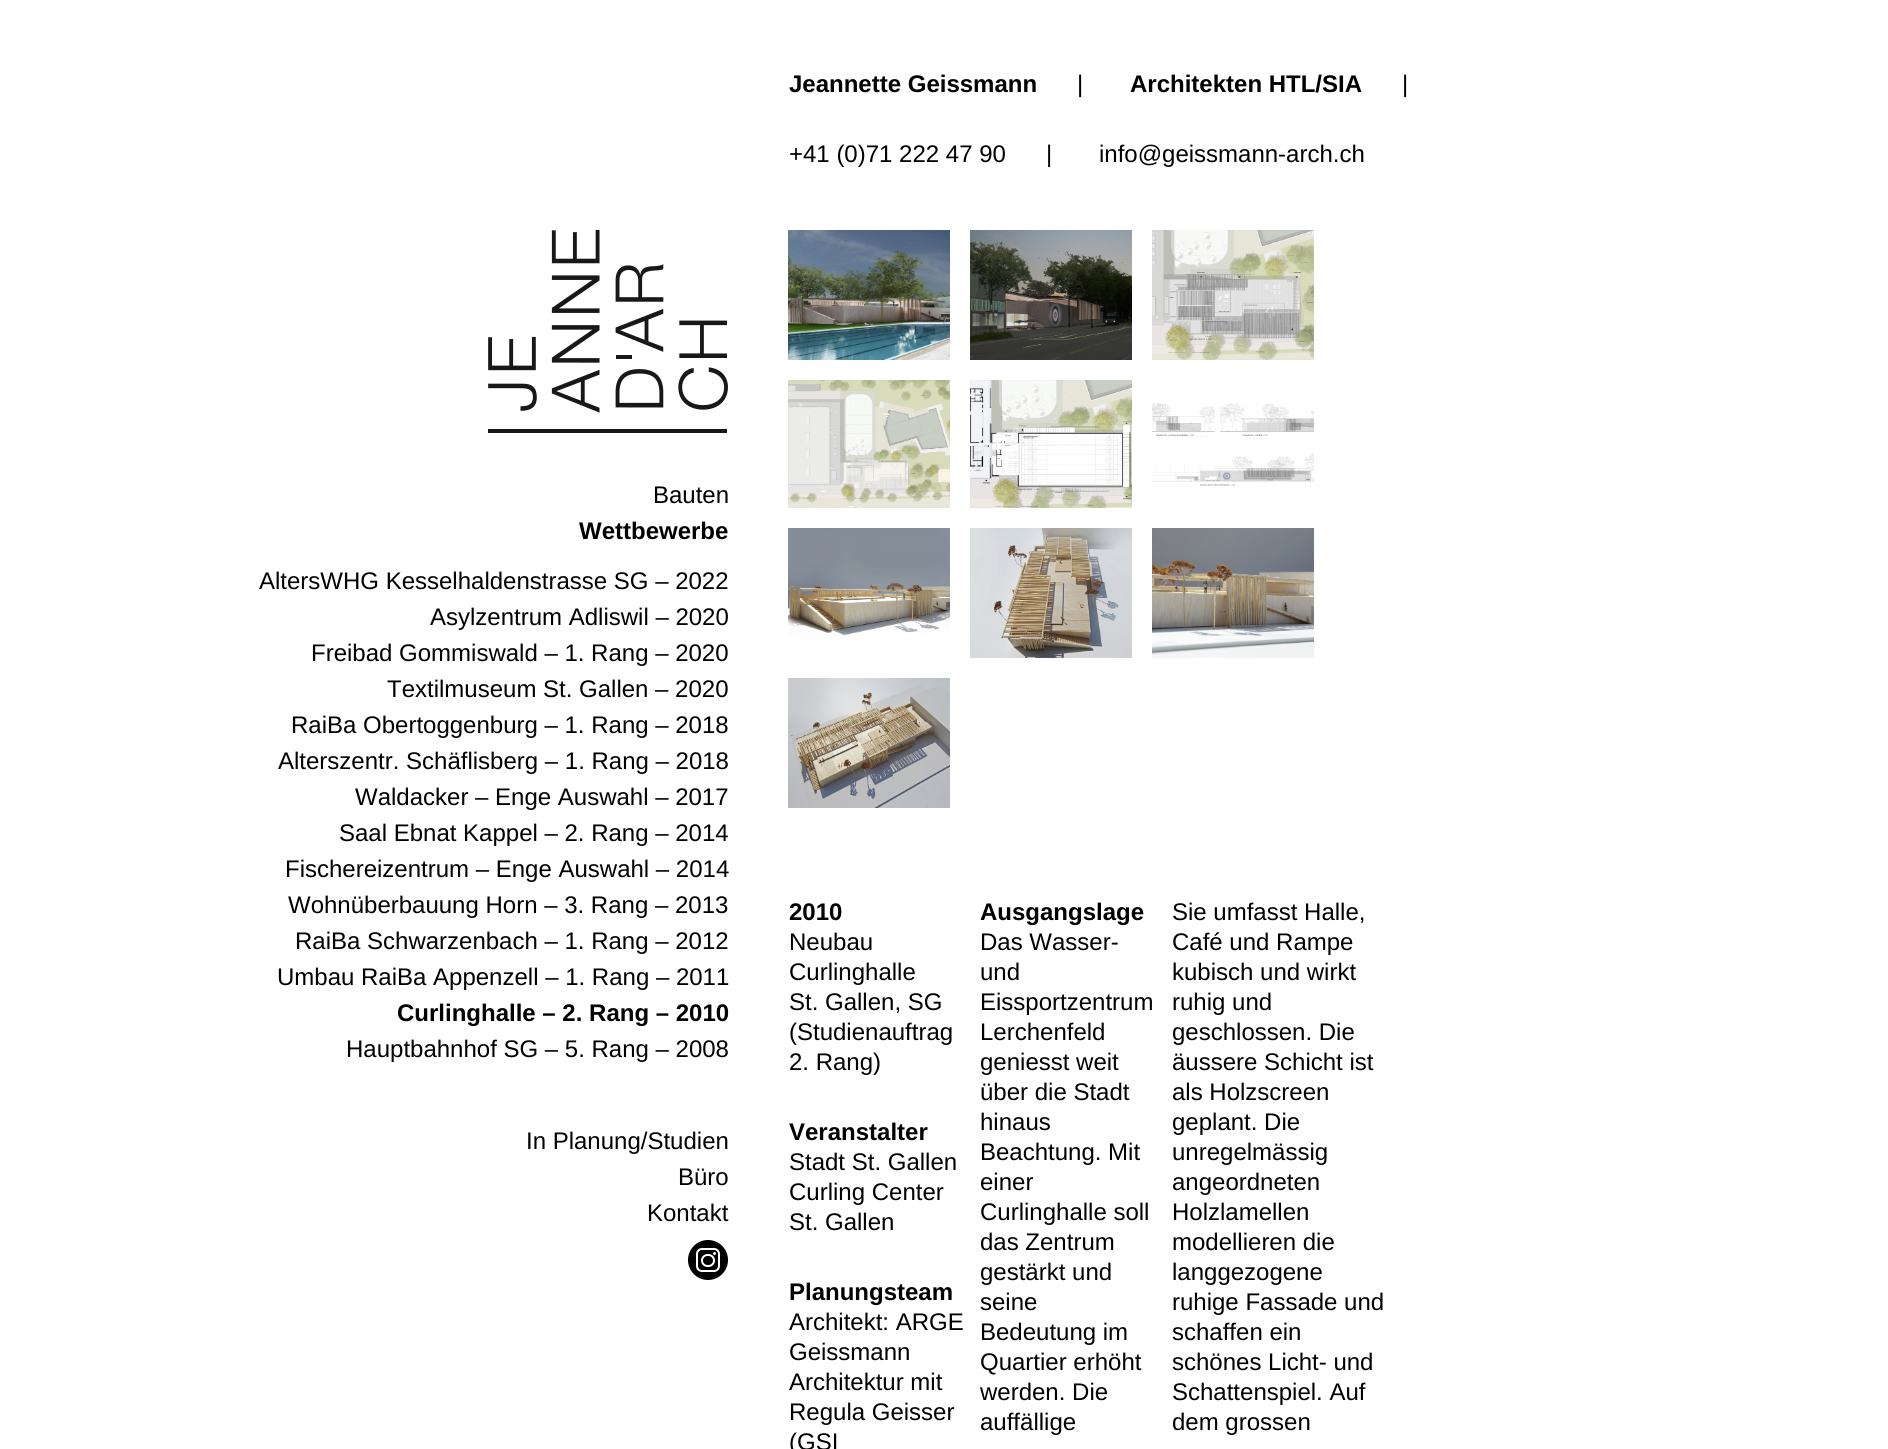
import math
import cairo


def round_path(ctx, x, y, w, h, r):
	ctx.new_sub_path()
	for i, (u, v) in enumerate([(x + w - r, y + h - r), (x + r, y + h - r), (x + r, y + r), (x + w - r, y + r)]):
		ctx.arc(u, v, r, i * math.pi / 2, (i + 1) * math.pi / 2)
	ctx.close_path()

def paste(ctx, path, x, y, w, h):
	ctx.save()
	ctx.set_source_surface(cairo.ImageSurface.create_from_png(path), x, y)
	ctx.rectangle(x, y, w, h)
	ctx.fill()
	ctx.restore()

def draw(ctx):
	ctx.set_source_rgb(1, 1, 1)
	ctx.paint()
	ctx.select_font_face('Liberation Sans', cairo.FONT_SLANT_NORMAL, cairo.FONT_WEIGHT_BOLD)
	ctx.set_font_size(24)
	ctx.set_source_rgb(0, 0, 0)
	ctx.move_to(789, 92)
	ctx.show_text('Jeannette Geissmann')
	ctx.select_font_face('Liberation Sans')
	ctx.move_to(1077, 92)
	ctx.show_text('|')
	ctx.select_font_face('Liberation Sans', cairo.FONT_SLANT_NORMAL, cairo.FONT_WEIGHT_BOLD)
	ctx.move_to(1130, 92)
	ctx.show_text('Architekten HTL/SIA')
	ctx.select_font_face('Liberation Sans')
	for x, y, s in [
		(1402, 92, '|'),
		(789, 162, '+41 (0)71 222 47 90'),
		(1046, 162, '|'),
		(1099, 162, 'info@geissmann-arch.ch'),
	]:
		ctx.move_to(x, y)
		ctx.show_text(s)
	paste(ctx, 'media/1.png', 488, 230, 240, 203)
	ctx.move_to(653, 503)
	ctx.show_text('Bauten')
	ctx.select_font_face('Liberation Sans', cairo.FONT_SLANT_NORMAL, cairo.FONT_WEIGHT_BOLD)
	ctx.move_to(579, 539)
	ctx.show_text('Wettbewerbe')
	ctx.select_font_face('Liberation Sans')
	for x, y, s in [
		(259, 589, 'AltersWHG Kesselhaldenstrasse SG – 2022'),
		(430, 625, 'Asylzentrum Adliswil – 2020'),
		(311, 661, 'Freibad Gommiswald – 1. Rang – 2020'),
		(387, 697, 'Textilmuseum St. Gallen – 2020'),
		(291, 733, 'RaiBa Obertoggenburg – 1. Rang – 2018'),
		(278, 769, 'Alterszentr. Schäflisberg – 1. Rang – 2018'),
		(355, 805, 'Waldacker – Enge Auswahl – 2017'),
		(339, 841, 'Saal Ebnat Kappel – 2. Rang – 2014'),
		(285, 877, 'Fischereizentrum – Enge Auswahl – 2014'),
		(288, 913, 'Wohnüberbauung Horn – 3. Rang – 2013'),
		(295, 949, 'RaiBa Schwarzenbach – 1. Rang – 2012'),
		(277, 985, 'Umbau RaiBa Appenzell – 1. Rang – 2011'),
	]:
		ctx.move_to(x, y)
		ctx.show_text(s)
	ctx.select_font_face('Liberation Sans', cairo.FONT_SLANT_NORMAL, cairo.FONT_WEIGHT_BOLD)
	ctx.move_to(397, 1021)
	ctx.show_text('Curlinghalle – 2. Rang – 2010')
	ctx.select_font_face('Liberation Sans')
	for x, y, s in [
		(346, 1057, 'Hauptbahnhof SG – 5. Rang – 2008'),
		(526, 1149, 'In Planung/Studien'),
		(678, 1185, 'Büro'),
		(647, 1221, 'Kontakt'),
	]:
		ctx.move_to(x, y)
		ctx.show_text(s)
	ctx.new_path()
	ctx.arc(708, 1260, 20, 0, 2 * math.pi)
	ctx.fill()
	round_path(ctx, 697, 1249, 22, 22, 5)
	ctx.set_source_rgb(1, 1, 1)
	ctx.stroke()
	round_path(ctx, 702, 1255, 12, 11, 5.5)
	ctx.stroke()
	ctx.arc(714.5, 1253.5, 1.5, 0, 2 * math.pi)
	ctx.fill()
	paste(ctx, 'media/2.png', 788, 230, 162, 130)
	paste(ctx, 'media/3.png', 970, 230, 162, 130)
	paste(ctx, 'media/4.png', 1152, 230, 162, 130)
	paste(ctx, 'media/5.png', 788, 380, 162, 128)
	paste(ctx, 'media/6.png', 970, 380, 162, 128)
	paste(ctx, 'media/7.png', 1152, 403, 162, 84)
	paste(ctx, 'media/8.png', 788, 528, 162, 108)
	paste(ctx, 'media/9.png', 970, 528, 162, 130)
	paste(ctx, 'media/10.png', 1152, 528, 162, 130)
	paste(ctx, 'media/11.png', 788, 678, 162, 130)
	ctx.select_font_face('Liberation Sans', cairo.FONT_SLANT_NORMAL, cairo.FONT_WEIGHT_BOLD)
	ctx.set_source_rgb(0, 0, 0)
	ctx.move_to(789, 920)
	ctx.show_text('2010')
	ctx.select_font_face('Liberation Sans')
	for x, y, s in [
		(789, 950, 'Neubau'),
		(789, 980, 'Curlinghalle'),
		(789, 1010, 'St. Gallen, SG'),
		(789, 1040, '(Studienauftrag'),
		(789, 1070, '2. Rang)'),
	]:
		ctx.move_to(x, y)
		ctx.show_text(s)
	ctx.select_font_face('Liberation Sans', cairo.FONT_SLANT_NORMAL, cairo.FONT_WEIGHT_BOLD)
	ctx.move_to(789, 1140)
	ctx.show_text('Veranstalter')
	ctx.select_font_face('Liberation Sans')
	for x, y, s in [
		(789, 1170, 'Stadt St. Gallen'),
		(789, 1200, 'Curling Center'),
		(789, 1230, 'St. Gallen'),
	]:
		ctx.move_to(x, y)
		ctx.show_text(s)
	ctx.select_font_face('Liberation Sans', cairo.FONT_SLANT_NORMAL, cairo.FONT_WEIGHT_BOLD)
	ctx.move_to(789, 1300)
	ctx.show_text('Planungsteam')
	ctx.select_font_face('Liberation Sans')
	for x, y, s in [
		(789, 1330, 'Architekt: ARGE'),
		(789, 1360, 'Geissmann'),
		(789, 1390, 'Architektur mit'),
		(789, 1420, 'Regula Geisser'),
		(789, 1450, '(GSI'),
	]:
		ctx.move_to(x, y)
		ctx.show_text(s)
	ctx.select_font_face('Liberation Sans', cairo.FONT_SLANT_NORMAL, cairo.FONT_WEIGHT_BOLD)
	ctx.move_to(980, 920)
	ctx.show_text('Ausgangslage')
	ctx.select_font_face('Liberation Sans')
	for x, y, s in [
		(980, 950, 'Das Wasser-'),
		(980, 980, 'und'),
		(980, 1010, 'Eissportzentrum'),
		(980, 1040, 'Lerchenfeld'),
		(980, 1070, 'geniesst weit'),
		(980, 1100, 'über die Stadt'),
		(980, 1130, 'hinaus'),
		(980, 1160, 'Beachtung. Mit'),
		(980, 1190, 'einer'),
		(980, 1220, 'Curlinghalle soll'),
		(980, 1250, 'das Zentrum'),
		(980, 1280, 'gestärkt und'),
		(980, 1310, 'seine'),
		(980, 1340, 'Bedeutung im'),
		(980, 1370, 'Quartier erhöht'),
		(980, 1400, 'werden. Die'),
		(980, 1430, 'auffällige'),
		(1172, 920, 'Sie umfasst Halle,'),
		(1172, 950, 'Café und Rampe'),
		(1172, 980, 'kubisch und wirkt'),
		(1172, 1010, 'ruhig und'),
		(1172, 1040, 'geschlossen. Die'),
		(1172, 1070, 'äussere Schicht ist'),
		(1172, 1100, 'als Holzscreen'),
		(1172, 1130, 'geplant. Die'),
		(1172, 1160, 'unregelmässig'),
		(1172, 1190, 'angeordneten'),
		(1172, 1220, 'Holzlamellen'),
		(1172, 1250, 'modellieren die'),
		(1172, 1280, 'langgezogene'),
		(1172, 1310, 'ruhige Fassade und'),
		(1172, 1340, 'schaffen ein'),
		(1172, 1370, 'schönes Licht- und'),
		(1172, 1400, 'Schattenspiel. Auf'),
		(1172, 1430, 'dem grossen'),
	]:
		ctx.move_to(x, y)
		ctx.show_text(s)


surface = cairo.ImageSurface(cairo.FORMAT_RGB24, 1888, 1449)
ctx = cairo.Context(surface)
options = cairo.FontOptions()
options.set_hint_metrics(cairo.HINT_METRICS_OFF)
options.set_hint_style(cairo.HINT_STYLE_NONE)
ctx.set_font_options(options)
ctx.set_miter_limit(4)
draw(ctx)
surface.write_to_png('image.png')
